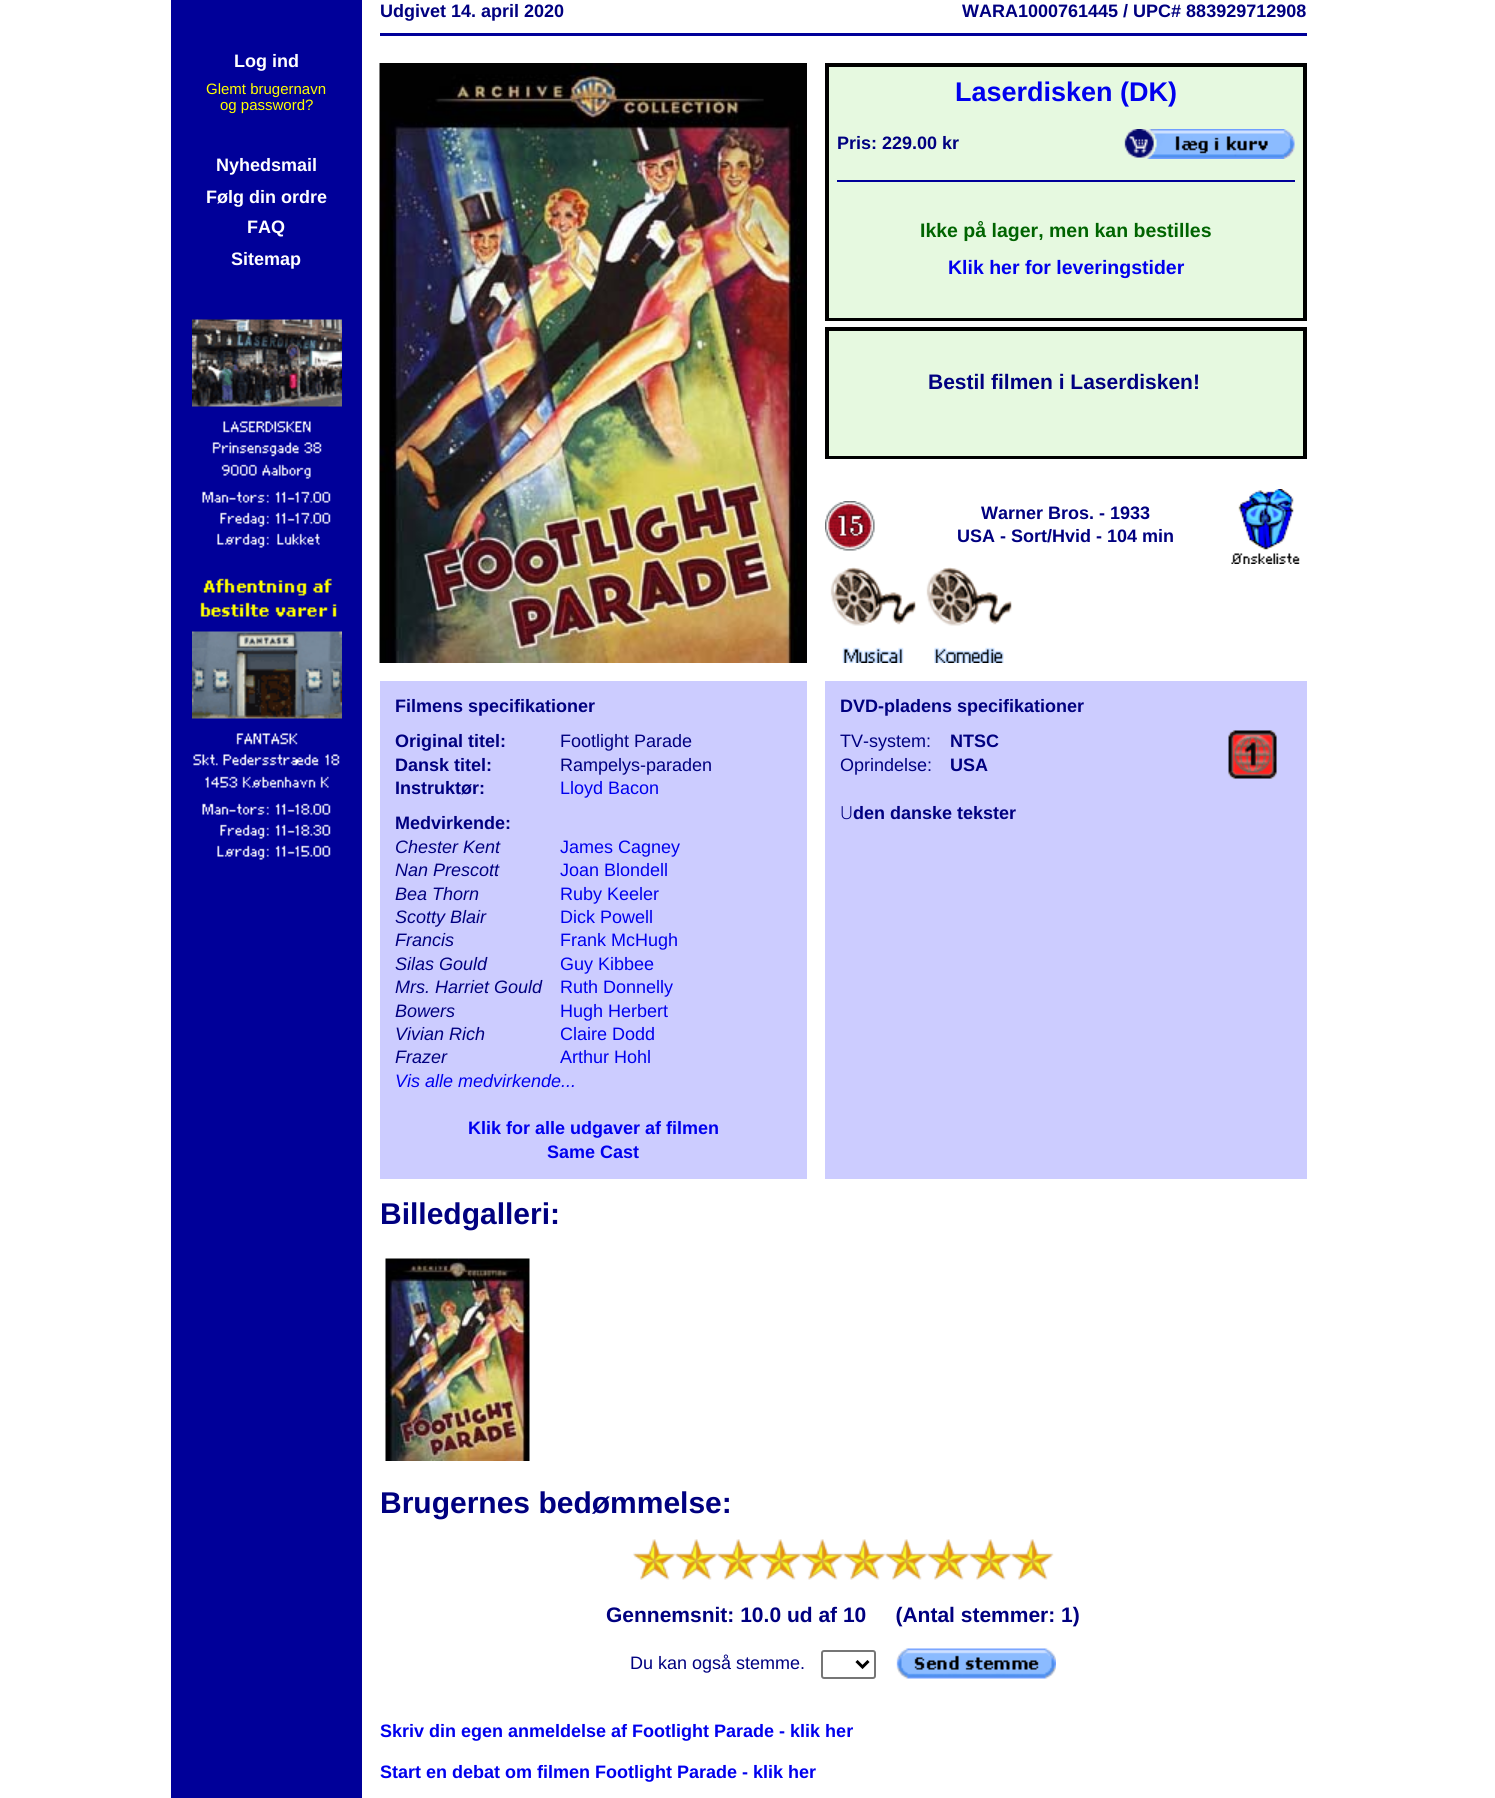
import math
import cairo


def round_path(ctx, x, y, w, h, r):
	ctx.new_sub_path()
	for i, (u, v) in enumerate([(x + w - r, y + h - r), (x + r, y + h - r), (x + r, y + r), (x + w - r, y + r)]):
		ctx.arc(u, v, r, i * math.pi / 2, (i + 1) * math.pi / 2)
	ctx.close_path()

def paste(ctx, path, x, y, w, h):
	ctx.save()
	ctx.set_source_surface(cairo.ImageSurface.create_from_png(path), x, y)
	ctx.rectangle(x, y, w, h)
	ctx.fill()
	ctx.restore()

def draw(ctx):
	ctx.set_source_rgb(1, 1, 1)
	ctx.paint()
	ctx.set_source_rgb(0, 0, 0.6)
	ctx.rectangle(171, 0, 191, 1798)
	ctx.fill()
	ctx.select_font_face('Liberation Sans', cairo.FONT_SLANT_NORMAL, cairo.FONT_WEIGHT_BOLD)
	ctx.set_font_size(18)
	ctx.set_source_rgb(1, 1, 1)
	ctx.move_to(234, 67)
	ctx.show_text('Log ind')
	ctx.select_font_face('Liberation Sans')
	ctx.set_font_size(15)
	ctx.set_source_rgb(1, 1, 0)
	ctx.move_to(206, 94)
	ctx.show_text('Glemt brugernavn')
	ctx.move_to(220, 110)
	ctx.show_text('og password?')
	ctx.select_font_face('Liberation Sans', cairo.FONT_SLANT_NORMAL, cairo.FONT_WEIGHT_BOLD)
	ctx.set_font_size(18)
	ctx.set_source_rgb(1, 1, 1)
	for x, y, s in [
		(216, 171, 'Nyhedsmail'),
		(206, 203, 'Følg din ordre'),
		(247, 233, 'FAQ'),
		(231, 265, 'Sitemap'),
	]:
		ctx.move_to(x, y)
		ctx.show_text(s)
	paste(ctx, 'media/1.png', 192, 319, 150, 229)
	paste(ctx, 'media/2.png', 192, 578, 150, 282)
	ctx.set_source_rgb(0, 0, 0.502)
	ctx.move_to(380, 17)
	ctx.show_text('Udgivet 14. april 2020')
	ctx.move_to(962, 17)
	ctx.show_text('WARA1000761445 / UPC# 883929712908')
	ctx.set_source_rgb(0, 0, 0.6)
	ctx.rectangle(380, 33, 927, 3)
	ctx.fill()
	paste(ctx, 'media/3.png', 379, 63, 428, 600)
	ctx.set_source_rgb(0.902, 0.973, 0.878)
	ctx.rectangle(829, 67, 474, 251)
	ctx.fill()
	ctx.rectangle(826, 64, 480, 256)
	ctx.set_source_rgb(0, 0, 0)
	ctx.stroke()
	ctx.rectangle(828, 66, 476, 253)
	ctx.stroke()
	ctx.set_font_size(27)
	ctx.set_source_rgb(0, 0, 0.933)
	ctx.move_to(955, 101)
	ctx.show_text('Laserdisken (DK)')
	ctx.set_font_size(18)
	ctx.set_source_rgb(0, 0, 0.502)
	ctx.move_to(837, 149)
	ctx.show_text('Pris: 229.00 kr')
	paste(ctx, 'media/4.png', 1124, 129, 171, 30)
	ctx.set_source_rgb(0, 0, 0.6)
	ctx.rectangle(837, 180, 458, 2)
	ctx.fill()
	ctx.set_font_size(19.5)
	ctx.set_source_rgb(0, 0.392, 0)
	ctx.move_to(920, 237)
	ctx.show_text('Ikke på lager, men kan bestilles')
	ctx.set_source_rgb(0, 0, 0.933)
	ctx.move_to(948, 274)
	ctx.show_text('Klik her for leveringstider')
	ctx.set_source_rgb(0.902, 0.973, 0.878)
	ctx.rectangle(829, 331, 474, 125)
	ctx.fill()
	ctx.rectangle(826, 328, 480, 130)
	ctx.set_source_rgb(0, 0, 0)
	ctx.stroke()
	ctx.rectangle(828, 330, 476, 127)
	ctx.stroke()
	ctx.set_font_size(21)
	ctx.set_source_rgb(0, 0, 0.502)
	ctx.move_to(928, 389)
	ctx.show_text('Bestil filmen i Laserdisken!')
	paste(ctx, 'media/5.png', 825, 501, 50, 50)
	ctx.set_font_size(18)
	ctx.move_to(981, 519)
	ctx.show_text('Warner Bros. - 1933')
	ctx.move_to(957, 542)
	ctx.show_text('USA - Sort/Hvid - 104 min')
	paste(ctx, 'media/6.png', 1231, 489, 69, 75)
	paste(ctx, 'media/7.png', 830, 567, 86, 96)
	paste(ctx, 'media/8.png', 926, 567, 86, 96)
	ctx.set_source_rgb(0.8, 0.8, 1)
	ctx.rectangle(380, 681, 427, 498)
	ctx.fill()
	ctx.set_source_rgb(0, 0, 0.502)
	ctx.move_to(395, 712)
	ctx.show_text('Filmens specifikationer')
	ctx.move_to(395, 747)
	ctx.show_text('Original titel:')
	ctx.select_font_face('Liberation Sans')
	ctx.move_to(560, 747)
	ctx.show_text('Footlight Parade')
	ctx.select_font_face('Liberation Sans', cairo.FONT_SLANT_NORMAL, cairo.FONT_WEIGHT_BOLD)
	ctx.move_to(395, 771)
	ctx.show_text('Dansk titel:')
	ctx.select_font_face('Liberation Sans')
	ctx.move_to(560, 771)
	ctx.show_text('Rampelys-paraden')
	ctx.select_font_face('Liberation Sans', cairo.FONT_SLANT_NORMAL, cairo.FONT_WEIGHT_BOLD)
	ctx.move_to(395, 794)
	ctx.show_text('Instruktør:')
	ctx.select_font_face('Liberation Sans')
	ctx.set_source_rgb(0, 0, 0.933)
	ctx.move_to(560, 794)
	ctx.show_text('Lloyd Bacon')
	ctx.select_font_face('Liberation Sans', cairo.FONT_SLANT_NORMAL, cairo.FONT_WEIGHT_BOLD)
	ctx.set_source_rgb(0, 0, 0.502)
	ctx.move_to(395, 829)
	ctx.show_text('Medvirkende:')
	ctx.select_font_face('Liberation Sans', cairo.FONT_SLANT_ITALIC)
	ctx.move_to(395, 853)
	ctx.show_text('Chester Kent')
	ctx.select_font_face('Liberation Sans')
	ctx.set_source_rgb(0, 0, 0.933)
	ctx.move_to(560, 853)
	ctx.show_text('James Cagney')
	ctx.select_font_face('Liberation Sans', cairo.FONT_SLANT_ITALIC)
	ctx.set_source_rgb(0, 0, 0.502)
	ctx.move_to(395, 876)
	ctx.show_text('Nan Prescott')
	ctx.select_font_face('Liberation Sans')
	ctx.set_source_rgb(0, 0, 0.933)
	ctx.move_to(560, 876)
	ctx.show_text('Joan Blondell')
	ctx.select_font_face('Liberation Sans', cairo.FONT_SLANT_ITALIC)
	ctx.set_source_rgb(0, 0, 0.502)
	ctx.move_to(395, 900)
	ctx.show_text('Bea Thorn')
	ctx.select_font_face('Liberation Sans')
	ctx.set_source_rgb(0, 0, 0.933)
	ctx.move_to(560, 900)
	ctx.show_text('Ruby Keeler')
	ctx.select_font_face('Liberation Sans', cairo.FONT_SLANT_ITALIC)
	ctx.set_source_rgb(0, 0, 0.502)
	ctx.move_to(395, 923)
	ctx.show_text('Scotty Blair')
	ctx.select_font_face('Liberation Sans')
	ctx.set_source_rgb(0, 0, 0.933)
	ctx.move_to(560, 923)
	ctx.show_text('Dick Powell')
	ctx.select_font_face('Liberation Sans', cairo.FONT_SLANT_ITALIC)
	ctx.set_source_rgb(0, 0, 0.502)
	ctx.move_to(395, 946)
	ctx.show_text('Francis')
	ctx.select_font_face('Liberation Sans')
	ctx.set_source_rgb(0, 0, 0.933)
	ctx.move_to(560, 946)
	ctx.show_text('Frank McHugh')
	ctx.select_font_face('Liberation Sans', cairo.FONT_SLANT_ITALIC)
	ctx.set_source_rgb(0, 0, 0.502)
	ctx.move_to(395, 970)
	ctx.show_text('Silas Gould')
	ctx.select_font_face('Liberation Sans')
	ctx.set_source_rgb(0, 0, 0.933)
	ctx.move_to(560, 970)
	ctx.show_text('Guy Kibbee')
	ctx.select_font_face('Liberation Sans', cairo.FONT_SLANT_ITALIC)
	ctx.set_source_rgb(0, 0, 0.502)
	ctx.move_to(395, 993)
	ctx.show_text('Mrs. Harriet Gould')
	ctx.select_font_face('Liberation Sans')
	ctx.set_source_rgb(0, 0, 0.933)
	ctx.move_to(560, 993)
	ctx.show_text('Ruth Donnelly')
	ctx.select_font_face('Liberation Sans', cairo.FONT_SLANT_ITALIC)
	ctx.set_source_rgb(0, 0, 0.502)
	ctx.move_to(395, 1017)
	ctx.show_text('Bowers')
	ctx.select_font_face('Liberation Sans')
	ctx.set_source_rgb(0, 0, 0.933)
	ctx.move_to(560, 1017)
	ctx.show_text('Hugh Herbert')
	ctx.select_font_face('Liberation Sans', cairo.FONT_SLANT_ITALIC)
	ctx.set_source_rgb(0, 0, 0.502)
	ctx.move_to(395, 1040)
	ctx.show_text('Vivian Rich')
	ctx.select_font_face('Liberation Sans')
	ctx.set_source_rgb(0, 0, 0.933)
	ctx.move_to(560, 1040)
	ctx.show_text('Claire Dodd')
	ctx.select_font_face('Liberation Sans', cairo.FONT_SLANT_ITALIC)
	ctx.set_source_rgb(0, 0, 0.502)
	ctx.move_to(395, 1063)
	ctx.show_text('Frazer')
	ctx.select_font_face('Liberation Sans')
	ctx.set_source_rgb(0, 0, 0.933)
	ctx.move_to(560, 1063)
	ctx.show_text('Arthur Hohl')
	ctx.select_font_face('Liberation Sans', cairo.FONT_SLANT_ITALIC)
	ctx.move_to(395, 1087)
	ctx.show_text('Vis alle medvirkende...')
	ctx.select_font_face('Liberation Sans', cairo.FONT_SLANT_NORMAL, cairo.FONT_WEIGHT_BOLD)
	ctx.move_to(468, 1134)
	ctx.show_text('Klik for alle udgaver af filmen')
	ctx.move_to(547, 1158)
	ctx.show_text('Same Cast')
	ctx.set_source_rgb(0.8, 0.8, 1)
	ctx.rectangle(825, 681, 482, 498)
	ctx.fill()
	ctx.set_source_rgb(0, 0, 0.502)
	ctx.move_to(840, 712)
	ctx.show_text('DVD-pladens specifikationer')
	ctx.select_font_face('Liberation Sans')
	ctx.move_to(840, 747)
	ctx.show_text('TV-system:')
	ctx.select_font_face('Liberation Sans', cairo.FONT_SLANT_NORMAL, cairo.FONT_WEIGHT_BOLD)
	ctx.move_to(950, 747)
	ctx.show_text('NTSC')
	paste(ctx, 'media/9.png', 1228, 730, 49, 49)
	ctx.select_font_face('Liberation Sans')
	ctx.move_to(840, 771)
	ctx.show_text('Oprindelse:')
	ctx.select_font_face('Liberation Sans', cairo.FONT_SLANT_NORMAL, cairo.FONT_WEIGHT_BOLD)
	ctx.move_to(950, 771)
	ctx.show_text('USA')
	ctx.select_font_face('Noto Sans Light')
	ctx.move_to(840, 819)
	ctx.show_text('U')
	ctx.select_font_face('Liberation Sans', cairo.FONT_SLANT_NORMAL, cairo.FONT_WEIGHT_BOLD)
	ctx.move_to(853, 819)
	ctx.show_text('den danske tekster')
	ctx.set_font_size(30)
	ctx.move_to(380, 1224)
	ctx.show_text('Billedgalleri:')
	paste(ctx, 'media/10.png', 385, 1258, 145, 203)
	ctx.move_to(380, 1513)
	ctx.show_text('Brugernes bedømmelse:')
	paste(ctx, 'media/11.png', 632, 1539, 422, 41)
	ctx.set_font_size(21)
	ctx.move_to(606, 1622)
	ctx.show_text('Gennemsnit: 10.0 ud af 10     (Antal stemmer: 1)')
	ctx.select_font_face('Liberation Sans')
	ctx.set_font_size(18)
	ctx.move_to(630, 1669)
	ctx.show_text('Du kan også stemme.')
	round_path(ctx, 822, 1651, 53, 27, 2)
	ctx.set_source_rgb(0.463, 0.463, 0.463)
	ctx.stroke()
	ctx.new_path()
	ctx.move_to(856.5, 1661)
	ctx.line_to(862.5, 1667)
	ctx.line_to(868.5, 1661)
	ctx.set_source_rgb(0, 0, 0)
	ctx.set_line_width(3)
	ctx.stroke()
	paste(ctx, 'media/12.png', 896, 1648, 160, 31)
	ctx.select_font_face('Liberation Sans', cairo.FONT_SLANT_NORMAL, cairo.FONT_WEIGHT_BOLD)
	ctx.set_source_rgb(0, 0, 0.933)
	ctx.move_to(380, 1737)
	ctx.show_text('Skriv din egen anmeldelse af Footlight Parade - klik her')
	ctx.move_to(380, 1778)
	ctx.show_text('Start en debat om filmen Footlight Parade - klik her')


surface = cairo.ImageSurface(cairo.FORMAT_RGB24, 1495, 1798)
ctx = cairo.Context(surface)
options = cairo.FontOptions()
options.set_hint_metrics(cairo.HINT_METRICS_OFF)
options.set_hint_style(cairo.HINT_STYLE_NONE)
ctx.set_font_options(options)
ctx.set_miter_limit(4)
draw(ctx)
surface.write_to_png('image.png')
